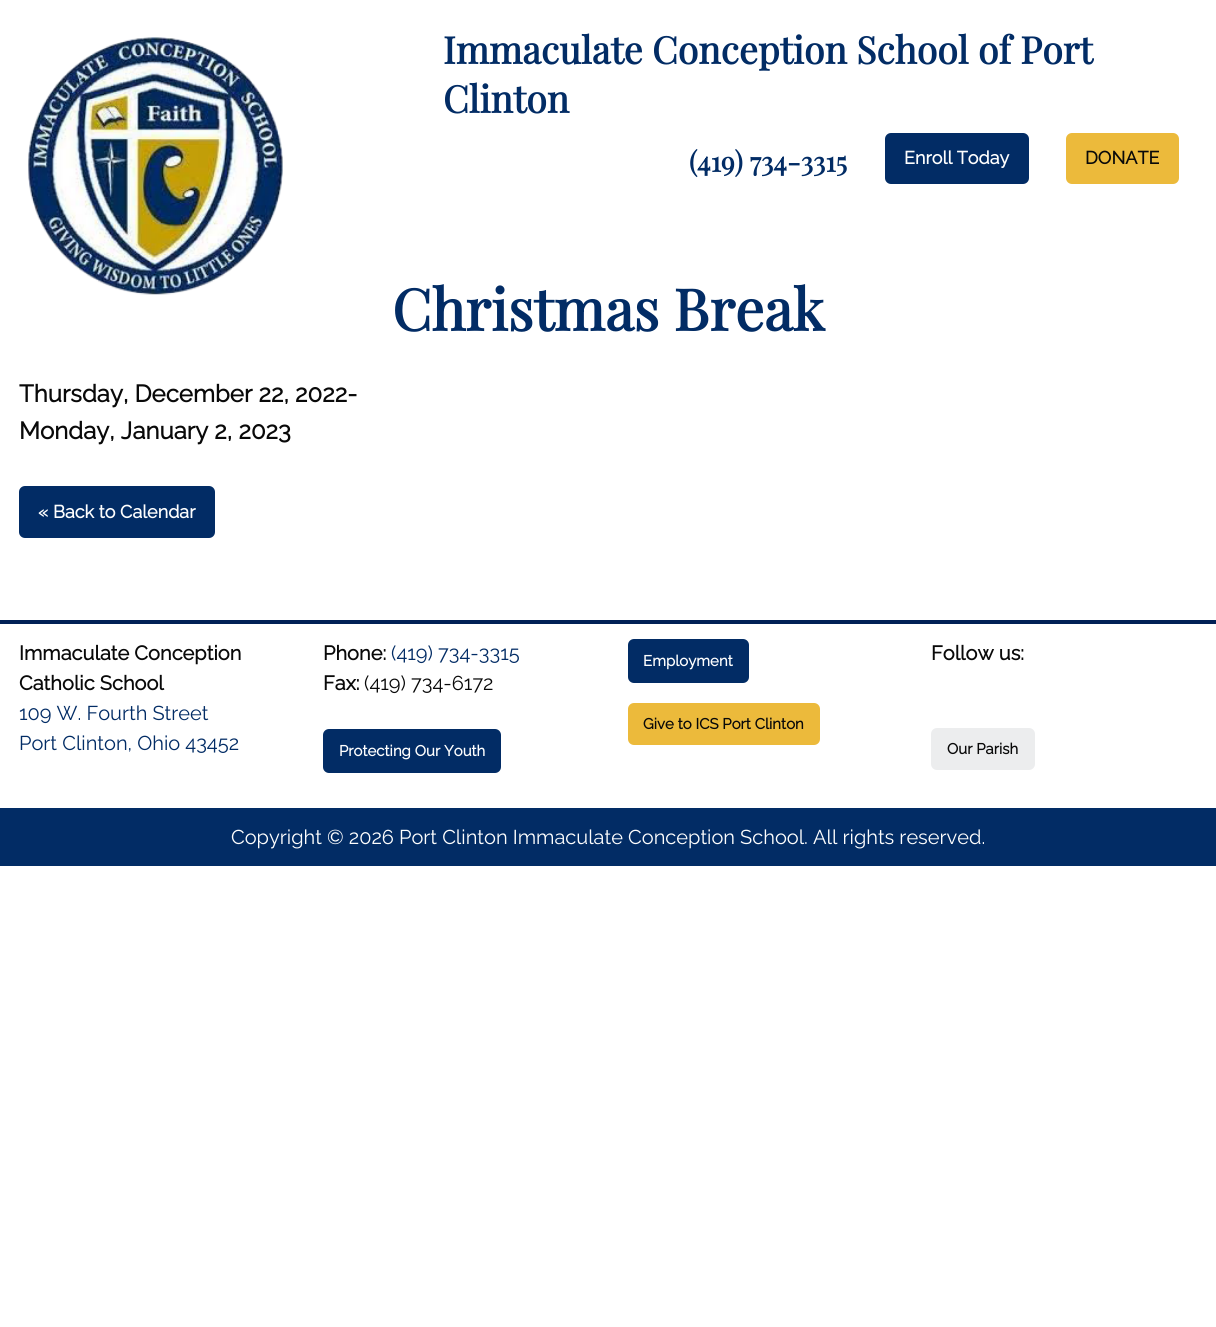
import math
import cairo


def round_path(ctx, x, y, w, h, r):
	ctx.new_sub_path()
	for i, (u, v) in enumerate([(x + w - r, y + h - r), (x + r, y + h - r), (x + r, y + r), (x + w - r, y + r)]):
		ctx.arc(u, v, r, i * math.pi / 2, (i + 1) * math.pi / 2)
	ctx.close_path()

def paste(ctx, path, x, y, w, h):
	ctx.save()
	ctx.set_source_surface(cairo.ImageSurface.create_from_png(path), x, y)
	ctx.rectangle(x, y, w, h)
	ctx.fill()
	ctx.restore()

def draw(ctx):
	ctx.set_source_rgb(1, 1, 1)
	ctx.paint()
	paste(ctx, 'media/1.png', 28, 37, 255, 258)
	ctx.select_font_face('Playfair Display', cairo.FONT_SLANT_NORMAL, cairo.FONT_WEIGHT_BOLD)
	ctx.set_font_size(37.5)
	ctx.set_source_rgb(0.008, 0.173, 0.396)
	ctx.move_to(443, 64)
	ctx.show_text('Immaculate Conception School of Port')
	ctx.move_to(443, 113)
	ctx.show_text('Clinton')
	ctx.set_font_size(27.5)
	ctx.move_to(689, 172)
	ctx.show_text('(419) 734-3315')
	round_path(ctx, 885, 133, 144, 51, 6)
	ctx.fill()
	ctx.select_font_face('Raleway', cairo.FONT_SLANT_NORMAL, cairo.FONT_WEIGHT_BOLD)
	ctx.set_font_size(18)
	ctx.set_source_rgb(0.996, 0.996, 0.996)
	ctx.move_to(904, 164)
	ctx.show_text('Enroll Today')
	ctx.set_source_rgb(0.922, 0.729, 0.231)
	round_path(ctx, 1066, 133, 113, 51, 6)
	ctx.fill()
	ctx.set_source_rgb(0.039, 0.039, 0.039)
	ctx.move_to(1085, 164)
	ctx.show_text('DONATE')
	ctx.select_font_face('Playfair Display', cairo.FONT_SLANT_NORMAL, cairo.FONT_WEIGHT_BOLD)
	ctx.set_font_size(57.5)
	ctx.set_source_rgb(0.008, 0.173, 0.396)
	ctx.move_to(392, 331)
	ctx.show_text('Christmas Break')
	ctx.select_font_face('Raleway', cairo.FONT_SLANT_NORMAL, cairo.FONT_WEIGHT_BOLD)
	ctx.set_font_size(24)
	ctx.set_source_rgb(0.039, 0.039, 0.039)
	ctx.move_to(19, 402)
	ctx.show_text('Thursday, December 22, 2022-')
	ctx.move_to(19, 439)
	ctx.show_text('Monday, January 2, 2023')
	ctx.set_source_rgb(0.008, 0.173, 0.396)
	round_path(ctx, 19, 486, 196, 52, 6)
	ctx.fill()
	ctx.set_font_size(18)
	ctx.set_source_rgb(0.996, 0.996, 0.996)
	ctx.move_to(38, 518)
	ctx.show_text('« Back to Calendar')
	ctx.set_source_rgb(0.004, 0.129, 0.337)
	ctx.rectangle(0, 620, 1216, 4)
	ctx.fill()
	ctx.set_font_size(20)
	ctx.set_source_rgb(0.039, 0.039, 0.039)
	ctx.move_to(19, 660)
	ctx.show_text('Immaculate Conception')
	ctx.move_to(19, 690)
	ctx.show_text('Catholic School')
	ctx.select_font_face('Raleway Thin')
	ctx.set_source_rgb(0.008, 0.173, 0.396)
	ctx.move_to(19, 720)
	ctx.show_text('109 W. Fourth Street')
	ctx.move_to(19, 750)
	ctx.show_text('Port Clinton, Ohio 43452')
	ctx.select_font_face('Raleway', cairo.FONT_SLANT_NORMAL, cairo.FONT_WEIGHT_BOLD)
	ctx.set_source_rgb(0.039, 0.039, 0.039)
	ctx.move_to(323, 660)
	ctx.show_text('Phone:')
	ctx.select_font_face('Raleway Thin')
	ctx.set_source_rgb(0.008, 0.173, 0.396)
	ctx.move_to(391, 660)
	ctx.show_text('(419) 734-3315')
	ctx.select_font_face('Raleway', cairo.FONT_SLANT_NORMAL, cairo.FONT_WEIGHT_BOLD)
	ctx.set_source_rgb(0.039, 0.039, 0.039)
	ctx.move_to(323, 690)
	ctx.show_text('Fax:')
	ctx.select_font_face('Raleway Thin')
	ctx.move_to(364, 690)
	ctx.show_text('(419) 734-6172')
	ctx.set_source_rgb(0.008, 0.173, 0.396)
	round_path(ctx, 323, 729, 178, 44, 6)
	ctx.fill()
	ctx.select_font_face('Raleway', cairo.FONT_SLANT_NORMAL, cairo.FONT_WEIGHT_BOLD)
	ctx.set_font_size(15)
	ctx.set_source_rgb(0.996, 0.996, 0.996)
	ctx.move_to(339, 756)
	ctx.show_text('Protecting Our Youth')
	ctx.set_source_rgb(0.008, 0.173, 0.396)
	round_path(ctx, 628, 639, 121, 44, 6)
	ctx.fill()
	ctx.set_source_rgb(0.996, 0.996, 0.996)
	ctx.move_to(643, 666)
	ctx.show_text('Employment')
	ctx.set_source_rgb(0.922, 0.729, 0.231)
	round_path(ctx, 628, 703, 192, 42, 6)
	ctx.fill()
	ctx.set_source_rgb(0.039, 0.039, 0.039)
	ctx.move_to(643, 729)
	ctx.show_text('Give to ICS Port Clinton')
	ctx.set_font_size(20)
	ctx.move_to(931, 660)
	ctx.show_text('Follow us:')
	ctx.set_source_rgb(0.925, 0.929, 0.933)
	round_path(ctx, 931, 728, 104, 42, 6)
	ctx.fill()
	ctx.set_font_size(15)
	ctx.set_source_rgb(0.039, 0.039, 0.039)
	ctx.move_to(947, 754)
	ctx.show_text('Our Parish')
	ctx.set_source_rgb(0.008, 0.173, 0.396)
	ctx.rectangle(0, 808, 1216, 58)
	ctx.fill()
	ctx.select_font_face('Raleway Thin')
	ctx.set_font_size(20)
	ctx.set_source_rgb(0.996, 0.996, 0.996)
	ctx.move_to(231, 844)
	ctx.show_text('Copyright © 2026 Port Clinton Immaculate Conception School. All rights reserved.')


surface = cairo.ImageSurface(cairo.FORMAT_RGB24, 1216, 1327)
ctx = cairo.Context(surface)
options = cairo.FontOptions()
options.set_hint_metrics(cairo.HINT_METRICS_OFF)
options.set_hint_style(cairo.HINT_STYLE_NONE)
ctx.set_font_options(options)
ctx.set_miter_limit(4)
draw(ctx)
surface.write_to_png('image.png')
